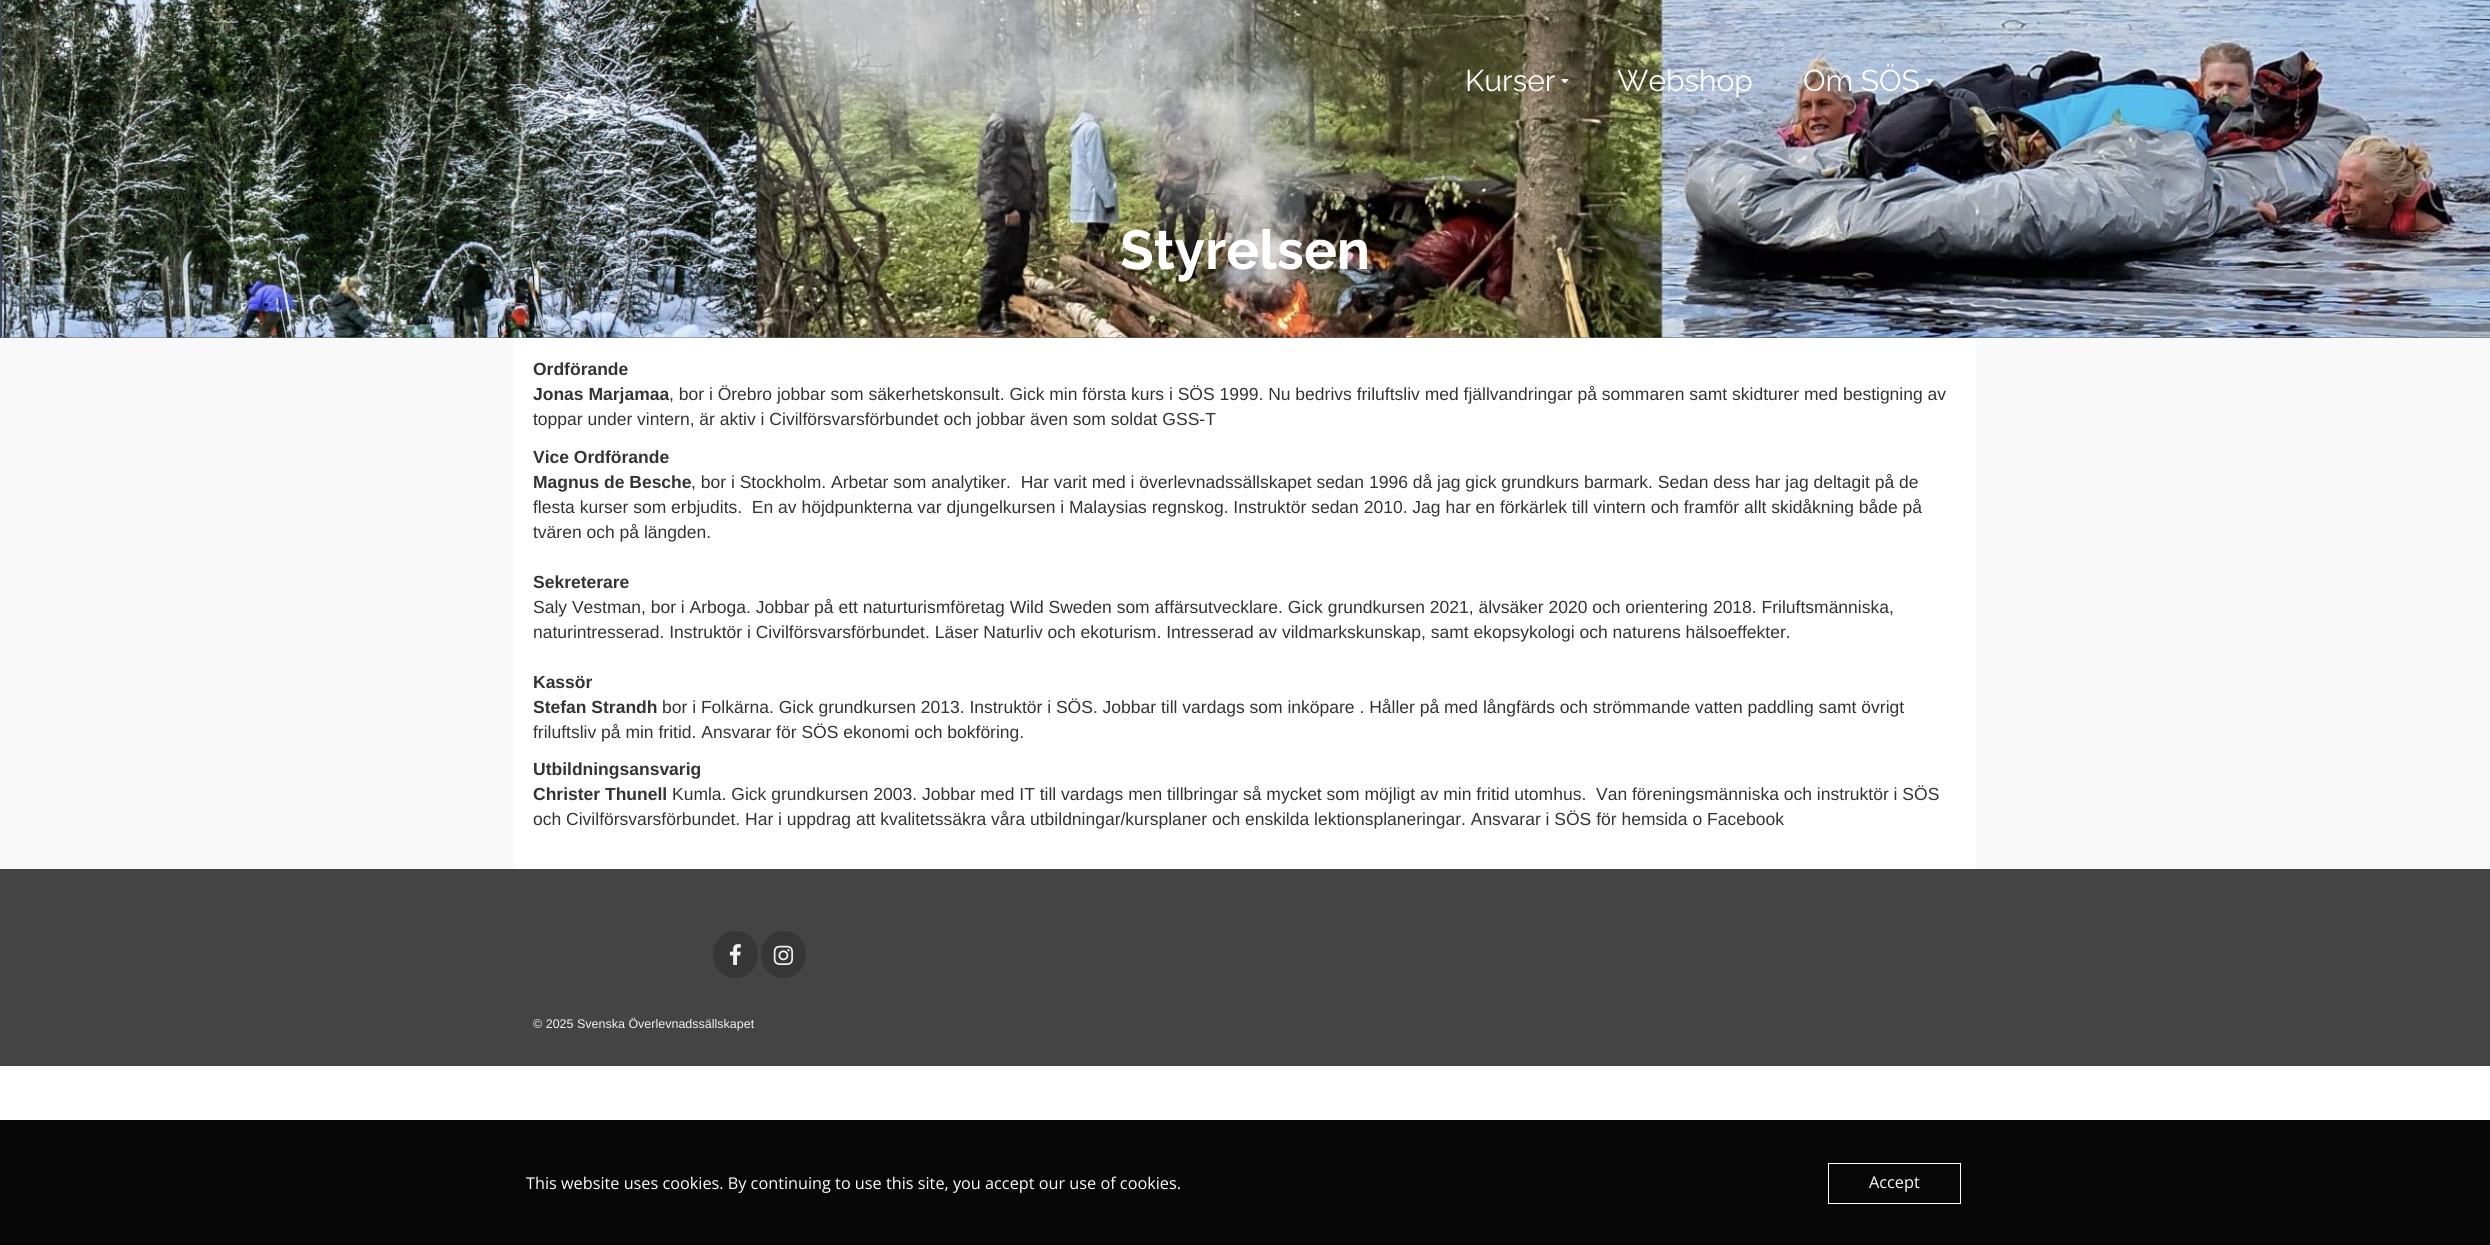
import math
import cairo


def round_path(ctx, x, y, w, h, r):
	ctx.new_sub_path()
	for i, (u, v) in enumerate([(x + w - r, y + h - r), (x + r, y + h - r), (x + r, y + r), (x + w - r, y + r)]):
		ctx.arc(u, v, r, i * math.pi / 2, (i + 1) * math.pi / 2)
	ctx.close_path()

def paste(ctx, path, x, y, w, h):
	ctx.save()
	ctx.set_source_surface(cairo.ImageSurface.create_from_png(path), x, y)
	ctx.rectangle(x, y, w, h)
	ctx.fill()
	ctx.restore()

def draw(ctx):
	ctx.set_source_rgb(1, 1, 1)
	ctx.paint()
	ctx.set_source_rgb(0.4, 0.4, 0.4)
	ctx.rectangle(0, 337, 2490, 1)
	ctx.fill()
	paste(ctx, 'media/3.png', 0, 0, 2490, 338)
	ctx.select_font_face('Raleway')
	ctx.set_font_size(30)
	ctx.set_source_rgb(1, 1, 1)
	ctx.move_to(1465, 91)
	ctx.show_text('Kurser')
	paste(ctx, 'media/1.png', 1561, 79, 8, 5)
	ctx.move_to(1617, 91)
	ctx.show_text('Webshop')
	ctx.move_to(1803, 91)
	ctx.show_text('Om SÖS')
	paste(ctx, 'media/2.png', 1926, 79, 8, 4)
	ctx.set_source_rgb(0.976, 0.976, 0.976)
	ctx.rectangle(0, 338, 2490, 531)
	ctx.fill()
	ctx.select_font_face('Raleway', cairo.FONT_SLANT_NORMAL, cairo.FONT_WEIGHT_BOLD)
	ctx.set_font_size(55)
	ctx.set_source_rgb(1, 1, 1)
	ctx.move_to(1120, 269)
	ctx.show_text('Styrelsen')
	ctx.rectangle(514, 338, 1462, 531)
	ctx.fill()
	ctx.select_font_face('Liberation Sans', cairo.FONT_SLANT_NORMAL, cairo.FONT_WEIGHT_BOLD)
	ctx.set_font_size(17.5)
	ctx.set_source_rgb(0.2, 0.2, 0.2)
	ctx.move_to(533, 375)
	ctx.show_text('Ordförande')
	ctx.move_to(533, 400)
	ctx.show_text('Jonas Marjamaa')
	ctx.select_font_face('Liberation Sans')
	ctx.move_to(669, 400)
	ctx.show_text(', bor i Örebro jobbar som säkerhetskonsult. Gick min första kurs i SÖS 1999. Nu bedrivs friluftsliv med fjällvandringar på sommaren samt skidturer med bestigning av')
	ctx.move_to(533, 425)
	ctx.show_text('toppar under vintern, är aktiv i Civilförsvarsförbundet och jobbar även som soldat GSS-T')
	ctx.select_font_face('Liberation Sans', cairo.FONT_SLANT_NORMAL, cairo.FONT_WEIGHT_BOLD)
	ctx.move_to(533, 463)
	ctx.show_text('Vice Ordförande')
	ctx.move_to(533, 488)
	ctx.show_text('Magnus de Besche')
	ctx.select_font_face('Liberation Sans')
	for x, y, s in [
		(691, 488, ', bor i Stockholm. Arbetar som analytiker.  Har varit med i överlevnadssällskapet sedan 1996 då jag gick grundkurs barmark. Sedan dess har jag deltagit på de'),
		(533, 513, 'flesta kurser som erbjudits.  En av höjdpunkterna var djungelkursen i Malaysias regnskog. Instruktör sedan 2010. Jag har en förkärlek till vintern och framför allt skidåkning både på'),
		(533, 538, 'tvären och på längden.'),
	]:
		ctx.move_to(x, y)
		ctx.show_text(s)
	ctx.select_font_face('Liberation Sans', cairo.FONT_SLANT_NORMAL, cairo.FONT_WEIGHT_BOLD)
	ctx.move_to(533, 588)
	ctx.show_text('Sekreterare')
	ctx.select_font_face('Liberation Sans')
	ctx.move_to(533, 613)
	ctx.show_text('Saly Vestman, bor i Arboga. Jobbar på ett naturturismföretag Wild Sweden som affärsutvecklare. Gick grundkursen 2021, älvsäker 2020 och orientering 2018. Friluftsmänniska,')
	ctx.move_to(533, 638)
	ctx.show_text('naturintresserad. Instruktör i Civilförsvarsförbundet. Läser Naturliv och ekoturism. Intresserad av vildmarkskunskap, samt ekopsykologi och naturens hälsoeffekter.')
	ctx.select_font_face('Liberation Sans', cairo.FONT_SLANT_NORMAL, cairo.FONT_WEIGHT_BOLD)
	ctx.move_to(533, 688)
	ctx.show_text('Kassör')
	ctx.move_to(533, 713)
	ctx.show_text('Stefan Strandh')
	ctx.select_font_face('Liberation Sans')
	ctx.move_to(662, 713)
	ctx.show_text('bor i Folkärna. Gick grundkursen 2013. Instruktör i SÖS. Jobbar till vardags som inköpare . Håller på med långfärds och strömmande vatten paddling samt övrigt')
	ctx.move_to(533, 738)
	ctx.show_text('friluftsliv på min fritid. Ansvarar för SÖS ekonomi och bokföring.')
	ctx.select_font_face('Liberation Sans', cairo.FONT_SLANT_NORMAL, cairo.FONT_WEIGHT_BOLD)
	ctx.move_to(533, 775)
	ctx.show_text('Utbildningsansvarig')
	ctx.move_to(533, 800)
	ctx.show_text('Christer Thunell')
	ctx.select_font_face('Liberation Sans')
	ctx.move_to(672, 800)
	ctx.show_text('Kumla. Gick grundkursen 2003. Jobbar med IT till vardags men tillbringar så mycket som möjligt av min fritid utomhus.  Van föreningsmänniska och instruktör i SÖS')
	ctx.move_to(533, 825)
	ctx.show_text('och Civilförsvarsförbundet. Har i uppdrag att kvalitetssäkra våra utbildningar/kursplaner och enskilda lektionsplaneringar. Ansvarar i SÖS för hemsida o Facebook')
	ctx.set_source_rgb(0.267, 0.267, 0.267)
	ctx.rectangle(0, 869, 2490, 197)
	ctx.fill()
	ctx.set_source_rgb(0.212, 0.212, 0.212)
	round_path(ctx, 713, 931, 45, 47, 22.5)
	ctx.fill()
	paste(ctx, 'media/4.png', 729, 944, 12, 21)
	round_path(ctx, 761, 931, 45, 47, 22.5)
	ctx.fill()
	paste(ctx, 'media/5.png', 773, 945, 21, 20)
	ctx.set_font_size(12.5)
	ctx.set_source_rgb(0.949, 0.949, 0.949)
	ctx.move_to(533, 1028)
	ctx.show_text('© 2025 Svenska Överlevnadssällskapet')
	ctx.set_source_rgb(0.031, 0.031, 0.031)
	ctx.rectangle(0, 1120, 2490, 125)
	ctx.fill()
	ctx.select_font_face('Open Sans')
	ctx.set_font_size(16.25)
	ctx.set_source_rgb(1, 1, 1)
	ctx.move_to(526, 1189)
	ctx.show_text('This website uses cookies. By continuing to use this site, you accept our use of cookies.')
	ctx.rectangle(1828.5, 1163.5, 132, 40)
	ctx.set_line_width(1)
	ctx.stroke()
	ctx.move_to(1869, 1188)
	ctx.show_text('Accept')


surface = cairo.ImageSurface(cairo.FORMAT_RGB24, 2490, 1245)
ctx = cairo.Context(surface)
options = cairo.FontOptions()
options.set_hint_metrics(cairo.HINT_METRICS_OFF)
options.set_hint_style(cairo.HINT_STYLE_NONE)
ctx.set_font_options(options)
ctx.set_miter_limit(4)
draw(ctx)
surface.write_to_png('image.png')
